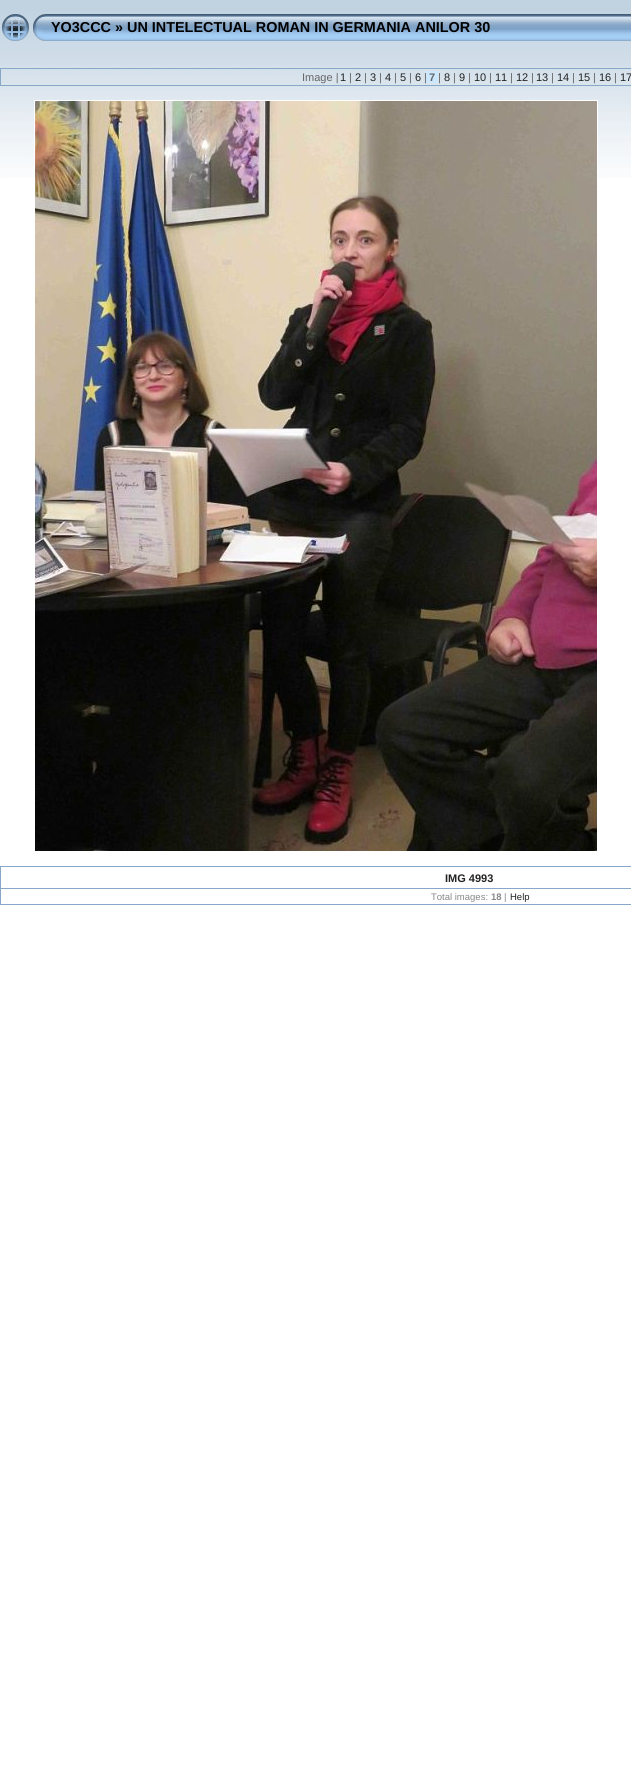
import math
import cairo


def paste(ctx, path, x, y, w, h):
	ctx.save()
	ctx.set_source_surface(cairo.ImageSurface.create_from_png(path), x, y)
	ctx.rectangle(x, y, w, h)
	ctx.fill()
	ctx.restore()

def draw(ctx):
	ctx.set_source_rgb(1, 1, 1)
	ctx.paint()
	paste(ctx, 'media/1.png', 0, 0, 631, 178)
	paste(ctx, 'media/2.png', 2, 14, 27, 27)
	paste(ctx, 'media/3.png', 33, 14, 18, 27)
	paste(ctx, 'media/4.png', 51, 14, 580, 27)
	ctx.select_font_face('Liberation Sans', cairo.FONT_SLANT_NORMAL, cairo.FONT_WEIGHT_BOLD)
	ctx.set_font_size(14.4)
	ctx.set_source_rgb(0, 0, 0)
	ctx.move_to(51, 32)
	ctx.show_text('YO3CCC » UN INTELECTUAL ROMAN IN GERMANIA ANILOR 30')
	ctx.set_source_rgb(0.533, 0.659, 0.792)
	ctx.rectangle(0, 68, 631, 1)
	ctx.rectangle(0, 85, 631, 1)
	ctx.rectangle(0, 68, 1, 18)
	ctx.fill()
	ctx.select_font_face('Liberation Sans')
	ctx.set_font_size(11)
	ctx.set_source_rgb(0.4, 0.4, 0.4)
	ctx.move_to(302, 81)
	ctx.show_text('Image |')
	ctx.set_source_rgb(0.133, 0.133, 0.133)
	ctx.move_to(340, 81)
	ctx.show_text('1')
	ctx.set_source_rgb(0.4, 0.4, 0.4)
	ctx.move_to(349, 81)
	ctx.show_text('|')
	ctx.set_source_rgb(0.133, 0.133, 0.133)
	ctx.move_to(355, 81)
	ctx.show_text('2')
	ctx.set_source_rgb(0.4, 0.4, 0.4)
	ctx.move_to(364, 81)
	ctx.show_text('|')
	ctx.set_source_rgb(0.133, 0.133, 0.133)
	ctx.move_to(370, 81)
	ctx.show_text('3')
	ctx.set_source_rgb(0.4, 0.4, 0.4)
	ctx.move_to(379, 81)
	ctx.show_text('|')
	ctx.set_source_rgb(0.133, 0.133, 0.133)
	ctx.move_to(385, 81)
	ctx.show_text('4')
	ctx.set_source_rgb(0.4, 0.4, 0.4)
	ctx.move_to(394, 81)
	ctx.show_text('|')
	ctx.set_source_rgb(0.133, 0.133, 0.133)
	ctx.move_to(400, 81)
	ctx.show_text('5')
	ctx.set_source_rgb(0.4, 0.4, 0.4)
	ctx.move_to(409, 81)
	ctx.show_text('|')
	ctx.set_source_rgb(0.133, 0.133, 0.133)
	ctx.move_to(415, 81)
	ctx.show_text('6')
	ctx.set_source_rgb(0.4, 0.4, 0.4)
	ctx.move_to(424, 81)
	ctx.show_text('|')
	ctx.set_source_rgb(0.8, 0.91, 1)
	ctx.rectangle(426, 71, 12, 12)
	ctx.fill()
	ctx.select_font_face('Liberation Sans', cairo.FONT_SLANT_NORMAL, cairo.FONT_WEIGHT_BOLD)
	ctx.set_source_rgb(0.4, 0.4, 0.4)
	ctx.move_to(429, 81)
	ctx.show_text('7')
	ctx.select_font_face('Liberation Sans')
	ctx.move_to(438, 81)
	ctx.show_text('|')
	ctx.set_source_rgb(0.133, 0.133, 0.133)
	ctx.move_to(444, 81)
	ctx.show_text('8')
	ctx.set_source_rgb(0.4, 0.4, 0.4)
	ctx.move_to(453, 81)
	ctx.show_text('|')
	ctx.set_source_rgb(0.133, 0.133, 0.133)
	ctx.move_to(459, 81)
	ctx.show_text('9')
	ctx.set_source_rgb(0.4, 0.4, 0.4)
	ctx.move_to(468, 81)
	ctx.show_text('|')
	ctx.set_source_rgb(0.133, 0.133, 0.133)
	ctx.move_to(474, 81)
	ctx.show_text('10')
	ctx.set_source_rgb(0.4, 0.4, 0.4)
	ctx.move_to(489, 81)
	ctx.show_text('|')
	ctx.set_source_rgb(0.133, 0.133, 0.133)
	ctx.move_to(495, 81)
	ctx.show_text('11')
	ctx.set_source_rgb(0.4, 0.4, 0.4)
	ctx.move_to(510, 81)
	ctx.show_text('|')
	ctx.set_source_rgb(0.133, 0.133, 0.133)
	ctx.move_to(516, 81)
	ctx.show_text('12')
	ctx.set_source_rgb(0.4, 0.4, 0.4)
	ctx.move_to(531, 81)
	ctx.show_text('|')
	ctx.set_source_rgb(0.133, 0.133, 0.133)
	ctx.move_to(536, 81)
	ctx.show_text('13')
	ctx.set_source_rgb(0.4, 0.4, 0.4)
	ctx.move_to(551, 81)
	ctx.show_text('|')
	ctx.set_source_rgb(0.133, 0.133, 0.133)
	ctx.move_to(557, 81)
	ctx.show_text('14')
	ctx.set_source_rgb(0.4, 0.4, 0.4)
	ctx.move_to(572, 81)
	ctx.show_text('|')
	ctx.set_source_rgb(0.133, 0.133, 0.133)
	ctx.move_to(578, 81)
	ctx.show_text('15')
	ctx.set_source_rgb(0.4, 0.4, 0.4)
	ctx.move_to(593, 81)
	ctx.show_text('|')
	ctx.set_source_rgb(0.133, 0.133, 0.133)
	ctx.move_to(599, 81)
	ctx.show_text('16')
	ctx.set_source_rgb(0.4, 0.4, 0.4)
	ctx.move_to(614, 81)
	ctx.show_text('|')
	ctx.set_source_rgb(0.133, 0.133, 0.133)
	ctx.move_to(620, 81)
	ctx.show_text('17')
	ctx.rectangle(34.5, 100.5, 563, 751)
	ctx.set_source_rgb(1, 1, 1)
	ctx.set_line_width(1)
	ctx.stroke()
	paste(ctx, 'media/5.png', 35, 101, 562, 750)
	ctx.set_source_rgb(0.533, 0.659, 0.792)
	ctx.rectangle(0, 866, 631, 1)
	ctx.rectangle(0, 904, 631, 1)
	ctx.rectangle(0, 866, 1, 39)
	ctx.fill()
	ctx.select_font_face('Liberation Sans', cairo.FONT_SLANT_NORMAL, cairo.FONT_WEIGHT_BOLD)
	ctx.set_source_rgb(0.133, 0.133, 0.133)
	ctx.move_to(445, 882)
	ctx.show_text('IMG 4993')
	ctx.set_source_rgb(0.533, 0.659, 0.792)
	ctx.rectangle(0, 888, 631, 1)
	ctx.fill()
	ctx.select_font_face('Liberation Sans')
	ctx.set_font_size(9.5)
	ctx.set_source_rgb(0.533, 0.533, 0.533)
	ctx.move_to(431, 900)
	ctx.show_text('Total images:')
	ctx.select_font_face('Liberation Sans', cairo.FONT_SLANT_NORMAL, cairo.FONT_WEIGHT_BOLD)
	ctx.move_to(491, 900)
	ctx.show_text('18')
	ctx.select_font_face('Liberation Sans')
	ctx.move_to(504, 900)
	ctx.show_text('|')
	ctx.set_source_rgb(0.133, 0.133, 0.133)
	ctx.move_to(510, 900)
	ctx.show_text('Help')


surface = cairo.ImageSurface(cairo.FORMAT_RGB24, 631, 1773)
ctx = cairo.Context(surface)
options = cairo.FontOptions()
options.set_hint_metrics(cairo.HINT_METRICS_OFF)
options.set_hint_style(cairo.HINT_STYLE_NONE)
ctx.set_font_options(options)
ctx.set_miter_limit(4)
draw(ctx)
surface.write_to_png('image.png')
